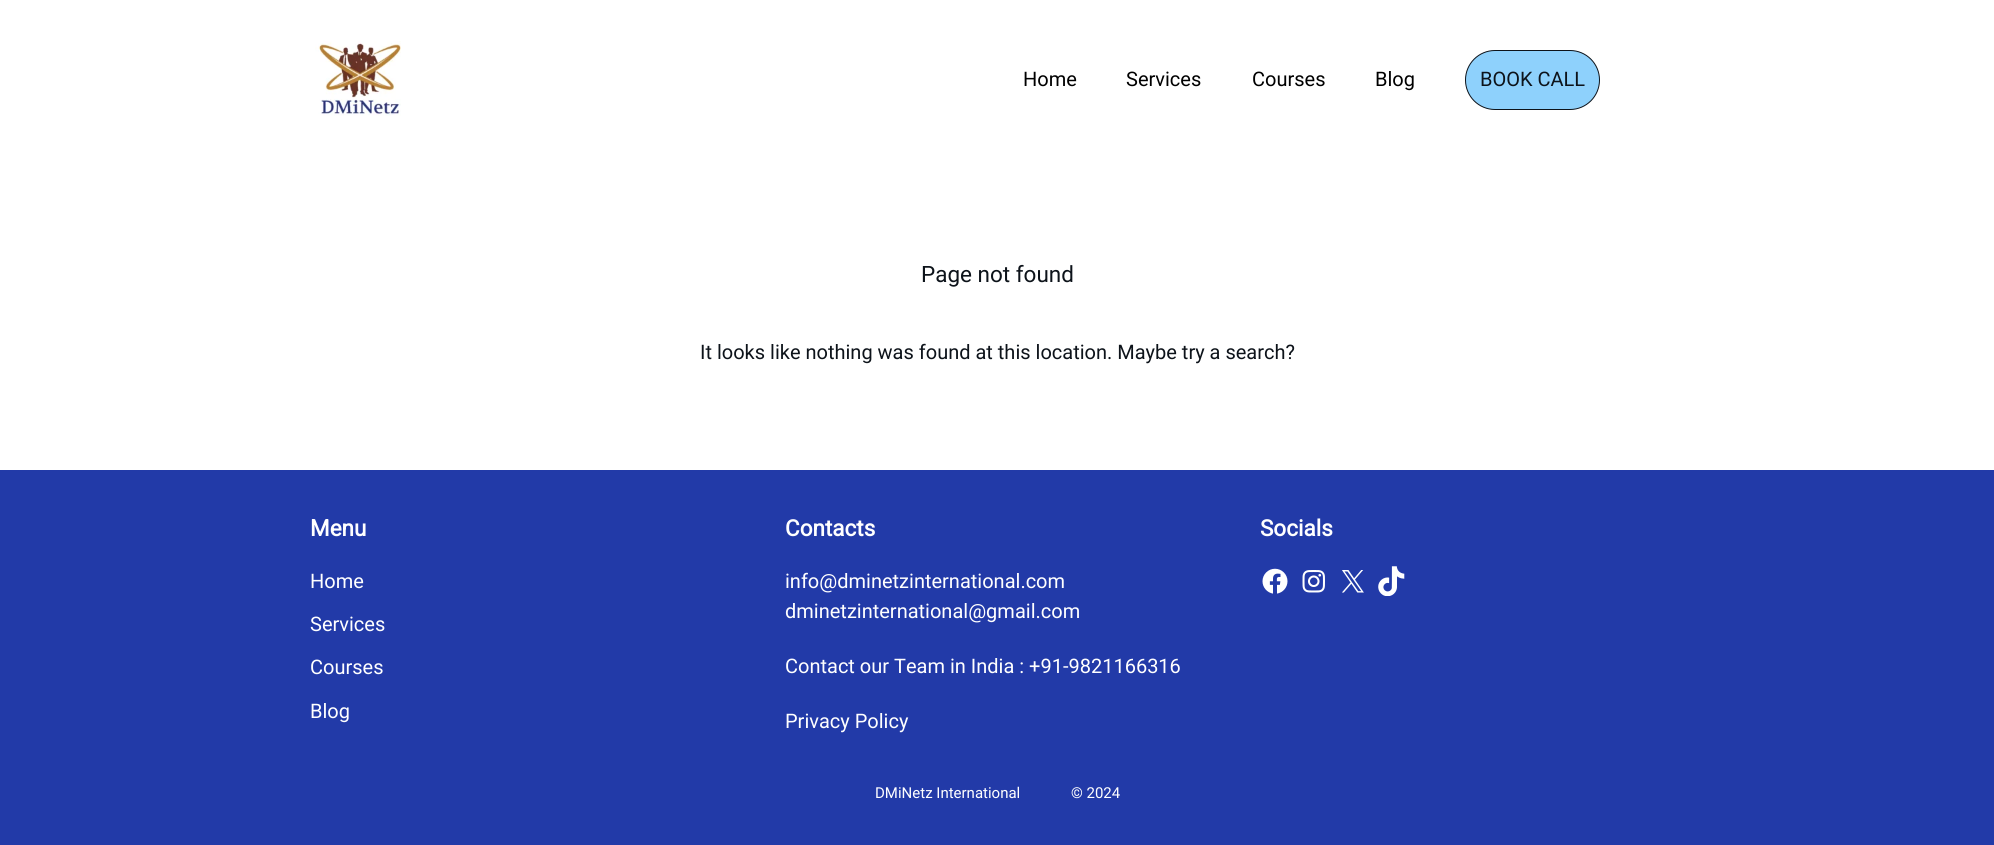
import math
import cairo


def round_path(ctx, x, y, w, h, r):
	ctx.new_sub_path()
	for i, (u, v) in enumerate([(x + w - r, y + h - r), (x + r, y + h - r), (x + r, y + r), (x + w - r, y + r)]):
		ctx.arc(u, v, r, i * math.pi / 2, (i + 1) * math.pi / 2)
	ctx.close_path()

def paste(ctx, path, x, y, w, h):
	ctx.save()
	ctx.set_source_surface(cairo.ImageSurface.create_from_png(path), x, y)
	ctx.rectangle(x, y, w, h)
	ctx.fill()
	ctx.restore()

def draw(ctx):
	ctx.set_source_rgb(1, 1, 1)
	ctx.paint()
	paste(ctx, 'media/1.png', 315, 41, 86, 75)
	ctx.select_font_face('Roboto')
	ctx.set_font_size(20)
	ctx.set_source_rgb(0, 0, 0)
	for x, y, s in [
		(1023, 86, 'Home'),
		(1126, 86, 'Services'),
		(1252, 86, 'Courses'),
		(1375, 86, 'Blog'),
	]:
		ctx.move_to(x, y)
		ctx.show_text(s)
	ctx.set_source_rgb(0.557, 0.82, 0.988)
	round_path(ctx, 1465.5, 50.5, 134, 59, 29.5)
	ctx.fill_preserve()
	ctx.set_source_rgb(0.051, 0.078, 0.102)
	ctx.set_line_width(1)
	ctx.stroke()
	ctx.move_to(1480, 86)
	ctx.show_text('BOOK CALL')
	ctx.set_font_size(22.5)
	ctx.move_to(921, 282)
	ctx.show_text('Page not found')
	ctx.set_font_size(20)
	ctx.move_to(700, 359)
	ctx.show_text('It looks like nothing was found at this location. Maybe try a search?')
	ctx.set_source_rgb(0.133, 0.227, 0.659)
	ctx.rectangle(0, 470, 1994, 375)
	ctx.fill()
	ctx.select_font_face('Roboto', cairo.FONT_SLANT_NORMAL, cairo.FONT_WEIGHT_BOLD)
	ctx.set_font_size(22.5)
	ctx.set_source_rgb(1, 1, 1)
	ctx.move_to(310, 536)
	ctx.show_text('Menu')
	ctx.select_font_face('Roboto')
	ctx.set_font_size(20)
	for x, y, s in [
		(310, 588, 'Home'),
		(310, 631, 'Services'),
		(310, 674, 'Courses'),
		(310, 718, 'Blog'),
	]:
		ctx.move_to(x, y)
		ctx.show_text(s)
	ctx.select_font_face('Roboto', cairo.FONT_SLANT_NORMAL, cairo.FONT_WEIGHT_BOLD)
	ctx.set_font_size(22.5)
	ctx.move_to(785, 536)
	ctx.show_text('Contacts')
	ctx.select_font_face('Roboto')
	ctx.set_font_size(20)
	for x, y, s in [
		(785, 588, 'info@dminetzinternational.com'),
		(785, 618, 'dminetzinternational@gmail.com'),
		(785, 673, 'Contact our Team in India : +91-9821166316'),
		(785, 728, 'Privacy Policy'),
	]:
		ctx.move_to(x, y)
		ctx.show_text(s)
	ctx.select_font_face('Roboto', cairo.FONT_SLANT_NORMAL, cairo.FONT_WEIGHT_BOLD)
	ctx.set_font_size(22.5)
	ctx.move_to(1260, 536)
	ctx.show_text('Socials')
	paste(ctx, 'media/2.png', 1262, 568, 26, 26)
	paste(ctx, 'media/3.png', 1302, 570, 23, 23)
	paste(ctx, 'media/4.png', 1342, 570, 22, 23)
	paste(ctx, 'media/5.png', 1378, 566, 27, 30)
	ctx.select_font_face('Roboto')
	ctx.set_font_size(15)
	ctx.move_to(875, 798)
	ctx.show_text('DMiNetz International')
	ctx.move_to(1071, 798)
	ctx.show_text('© 2024')


surface = cairo.ImageSurface(cairo.FORMAT_RGB24, 1994, 845)
ctx = cairo.Context(surface)
options = cairo.FontOptions()
options.set_hint_metrics(cairo.HINT_METRICS_OFF)
options.set_hint_style(cairo.HINT_STYLE_NONE)
ctx.set_font_options(options)
ctx.set_miter_limit(4)
draw(ctx)
surface.write_to_png('image.png')
